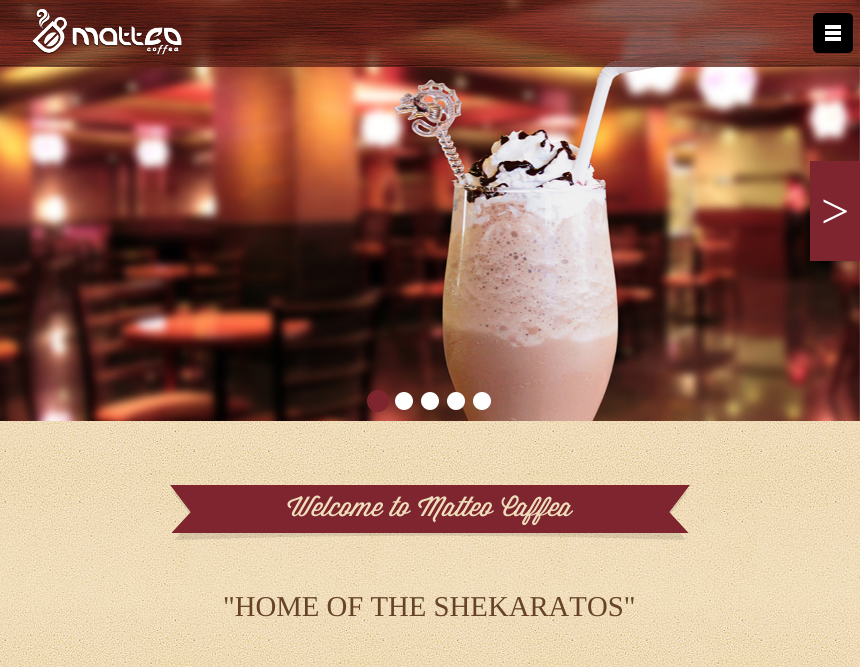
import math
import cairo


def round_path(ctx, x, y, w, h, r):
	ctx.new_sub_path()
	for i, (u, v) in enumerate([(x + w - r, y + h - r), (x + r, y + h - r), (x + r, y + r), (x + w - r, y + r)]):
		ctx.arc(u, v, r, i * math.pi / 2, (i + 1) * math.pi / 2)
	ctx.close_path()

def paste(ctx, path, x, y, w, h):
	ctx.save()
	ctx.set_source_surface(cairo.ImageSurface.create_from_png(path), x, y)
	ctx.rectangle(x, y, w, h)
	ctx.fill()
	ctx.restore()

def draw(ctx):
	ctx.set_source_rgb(1, 1, 1)
	ctx.paint()
	paste(ctx, 'media/3.png', 0, 0, 860, 421)
	paste(ctx, 'media/1.png', 0, 0, 860, 67)
	paste(ctx, 'media/2.png', 32, 9, 150, 47)
	ctx.set_source_rgb(0, 0, 0)
	round_path(ctx, 813, 13, 40, 40, 5)
	ctx.fill()
	ctx.set_source_rgb(1, 1, 1)
	ctx.rectangle(825, 25, 16, 4)
	ctx.rectangle(825, 31, 16, 4)
	ctx.rectangle(825, 37, 16, 4)
	ctx.fill()
	ctx.set_source_rgb(0.494, 0.145, 0.184)
	ctx.rectangle(810, 161, 50, 100)
	ctx.fill()
	ctx.select_font_face('Liberation Serif')
	ctx.set_font_size(50)
	ctx.set_source_rgb(1, 1, 1)
	ctx.move_to(821, 228)
	ctx.show_text('>')
	ctx.new_path()
	ctx.arc(378, 401, 10, 0, 2 * math.pi)
	ctx.set_source_rgb(0.494, 0.145, 0.184)
	ctx.stroke()
	ctx.arc(378, 401, 9, 0, 2 * math.pi)
	ctx.fill()
	ctx.set_source_rgb(1, 1, 1)
	ctx.arc(404, 401, 9, 0, 2 * math.pi)
	ctx.fill()
	ctx.arc(430, 401, 9, 0, 2 * math.pi)
	ctx.fill()
	ctx.arc(456, 401, 9, 0, 2 * math.pi)
	ctx.fill()
	ctx.arc(482, 401, 9, 0, 2 * math.pi)
	ctx.fill()
	paste(ctx, 'media/4.png', 0, 421, 860, 246)
	paste(ctx, 'media/5.png', 170, 485, 520, 55)
	ctx.select_font_face('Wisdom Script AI')
	ctx.set_font_size(26.9)
	ctx.set_source_rgb(0.937, 0.871, 0.737)
	ctx.move_to(287, 516)
	ctx.show_text('Welcome to Matteo Caffea')
	ctx.select_font_face('Liberation Serif')
	ctx.set_font_size(28.75)
	ctx.set_source_rgb(0.396, 0.259, 0.157)
	ctx.move_to(223, 616)
	ctx.show_text('"HOME OF THE SHEKARATOS"')


surface = cairo.ImageSurface(cairo.FORMAT_RGB24, 860, 667)
ctx = cairo.Context(surface)
options = cairo.FontOptions()
options.set_hint_metrics(cairo.HINT_METRICS_OFF)
options.set_hint_style(cairo.HINT_STYLE_NONE)
ctx.set_font_options(options)
ctx.set_miter_limit(4)
draw(ctx)
surface.write_to_png('image.png')
